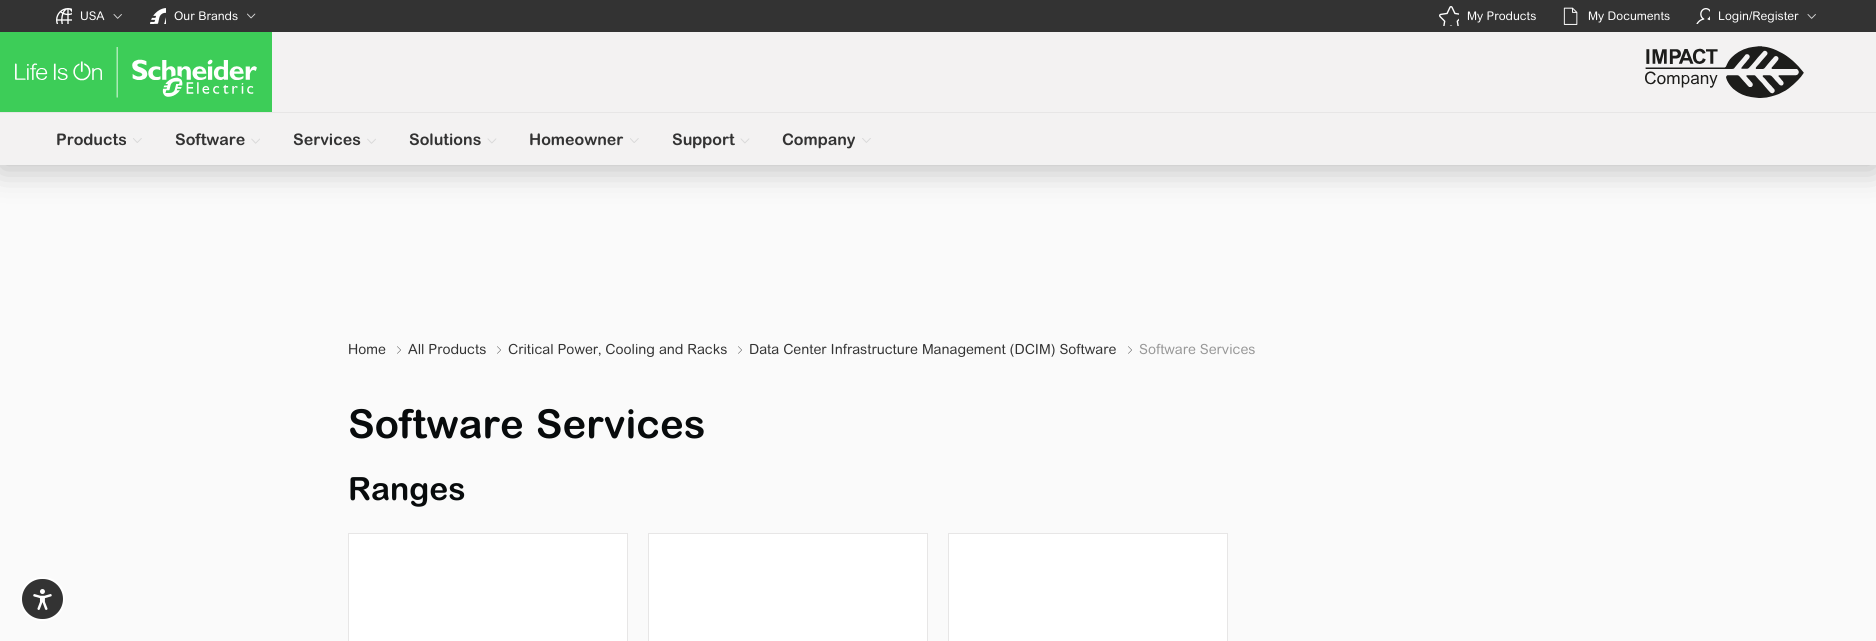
import math
import cairo


def round_path(ctx, x, y, w, h, r):
	ctx.new_sub_path()
	for i, (u, v) in enumerate([(x + w - r, y + h - r), (x + r, y + h - r), (x + r, y + r), (x + w - r, y + r)]):
		ctx.arc(u, v, r, i * math.pi / 2, (i + 1) * math.pi / 2)
	ctx.close_path()

def blur_box(ctx, x, y, w, h, r, blur, alpha):
	ctx.push_group_with_content(cairo.CONTENT_ALPHA)
	ctx.set_operator(cairo.OPERATOR_SOURCE)
	for i in range(15, -16, -2):
		e = blur * i / 6
		if min(w, h) + 2 * e > 0:
			ctx.set_source_rgba(0, 0, 0, alpha * math.erfc((i - 1) / 8.5) / 2)
			round_path(ctx, x - e, y - e, w + 2 * e, h + 2 * e, max(0, min(r + e + blur * .6, min(w, h) / 2 + e)))
			ctx.fill()
	ctx.mask(ctx.pop_group())

def paste(ctx, path, x, y, w, h):
	ctx.save()
	ctx.set_source_surface(cairo.ImageSurface.create_from_png(path), x, y)
	ctx.rectangle(x, y, w, h)
	ctx.fill()
	ctx.restore()

def draw(ctx):
	ctx.set_source_rgb(0.98, 0.98, 0.98)
	ctx.paint()
	ctx.set_source_rgb(0, 0, 0)
	blur_box(ctx, 0, 36, 1876, 133, 0, 16, 0.25)
	ctx.set_source_rgb(0.2, 0.2, 0.2)
	ctx.rectangle(0, 0, 1876, 32)
	ctx.fill()
	paste(ctx, 'media/1.png', 56, 8, 16, 16)
	ctx.select_font_face('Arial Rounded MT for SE')
	ctx.set_font_size(12)
	ctx.set_source_rgb(1, 1, 1)
	ctx.move_to(80, 20)
	ctx.show_text('USA')
	paste(ctx, 'media/2.png', 113, 14, 9, 5)
	paste(ctx, 'media/3.png', 150, 8, 16, 16)
	ctx.move_to(174, 20)
	ctx.show_text('Our Brands')
	paste(ctx, 'media/4.png', 247, 13, 9, 6)
	paste(ctx, 'media/5.png', 1439, 6, 20, 20)
	ctx.move_to(1467, 20)
	ctx.show_text('My Products')
	paste(ctx, 'media/6.png', 1563, 7, 15, 18)
	ctx.move_to(1588, 20)
	ctx.show_text('My Documents')
	paste(ctx, 'media/7.png', 1696, 8, 14, 16)
	ctx.move_to(1718, 20)
	ctx.show_text('Login/Register')
	paste(ctx, 'media/8.png', 1807, 14, 9, 5)
	ctx.set_source_rgb(0.953, 0.949, 0.949)
	ctx.rectangle(0, 32, 1876, 133)
	ctx.fill()
	ctx.set_source_rgb(0.906, 0.902, 0.902)
	ctx.rectangle(0, 112, 1876, 1)
	ctx.fill()
	ctx.set_source_rgb(0.239, 0.804, 0.345)
	ctx.rectangle(0, 32, 272, 80)
	ctx.fill()
	paste(ctx, 'media/9.png', 15, 47, 242, 51)
	paste(ctx, 'media/10.png', 1645, 46, 159, 52)
	ctx.select_font_face('Arial Rounded MT for SE', cairo.FONT_SLANT_NORMAL, cairo.FONT_WEIGHT_BOLD)
	ctx.set_font_size(16)
	ctx.set_source_rgb(0.2, 0.2, 0.2)
	ctx.move_to(56, 145)
	ctx.show_text('Products')
	paste(ctx, 'media/11.png', 133, 138, 9, 5)
	ctx.move_to(175, 145)
	ctx.show_text('Software')
	paste(ctx, 'media/12.png', 251, 138, 9, 6)
	ctx.move_to(293, 145)
	ctx.show_text('Services')
	paste(ctx, 'media/13.png', 367, 138, 9, 6)
	ctx.move_to(409, 145)
	ctx.show_text('Solutions')
	paste(ctx, 'media/14.png', 487, 138, 10, 6)
	ctx.move_to(529, 145)
	ctx.show_text('Homeowner')
	paste(ctx, 'media/15.png', 630, 138, 9, 5)
	ctx.move_to(672, 145)
	ctx.show_text('Support')
	paste(ctx, 'media/16.png', 740, 138, 10, 6)
	ctx.move_to(782, 145)
	ctx.show_text('Company')
	paste(ctx, 'media/17.png', 862, 138, 9, 5)
	ctx.select_font_face('Arial Rounded MT for SE')
	ctx.set_font_size(14)
	ctx.move_to(348, 354)
	ctx.show_text('Home')
	paste(ctx, 'media/18.png', 397, 346, 4, 8)
	ctx.move_to(408, 354)
	ctx.show_text('All Products')
	paste(ctx, 'media/18.png', 497, 346, 4, 8)
	ctx.move_to(508, 354)
	ctx.show_text('Critical Power, Cooling and Racks')
	paste(ctx, 'media/18.png', 738, 346, 4, 8)
	ctx.move_to(749, 354)
	ctx.show_text('Data Center Infrastructure Management (DCIM) Software')
	paste(ctx, 'media/18.png', 1128, 346, 4, 8)
	ctx.set_source_rgb(0.592, 0.592, 0.592)
	ctx.move_to(1139, 354)
	ctx.show_text('Software Services')
	ctx.select_font_face('Arial Rounded MT for SE', cairo.FONT_SLANT_NORMAL, cairo.FONT_WEIGHT_BOLD)
	ctx.set_font_size(40)
	ctx.set_source_rgb(0.035, 0.043, 0.047)
	ctx.move_to(348, 438)
	ctx.show_text('Software Services')
	ctx.set_font_size(32)
	ctx.move_to(348, 500)
	ctx.show_text('Ranges')
	ctx.set_source_rgb(1, 1, 1)
	ctx.rectangle(348.5, 533.5, 279, 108)
	ctx.fill_preserve()
	ctx.set_source_rgb(0.906, 0.902, 0.902)
	ctx.set_line_width(1)
	ctx.stroke()
	ctx.set_source_rgb(1, 1, 1)
	ctx.rectangle(648.5, 533.5, 279, 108)
	ctx.fill_preserve()
	ctx.set_source_rgb(0.906, 0.902, 0.902)
	ctx.stroke()
	ctx.set_source_rgb(1, 1, 1)
	ctx.rectangle(948.5, 533.5, 279, 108)
	ctx.fill_preserve()
	ctx.set_source_rgb(0.906, 0.902, 0.902)
	ctx.stroke()
	ctx.set_source_rgb(0.2, 0.2, 0.2)
	round_path(ctx, 21, 578, 43, 42, 21)
	ctx.fill_preserve()
	ctx.set_source_rgb(1, 1, 1)
	ctx.set_line_width(2)
	ctx.stroke()
	paste(ctx, 'media/19.png', 33, 589, 19, 21)


surface = cairo.ImageSurface(cairo.FORMAT_RGB24, 1876, 641)
ctx = cairo.Context(surface)
options = cairo.FontOptions()
options.set_hint_metrics(cairo.HINT_METRICS_OFF)
options.set_hint_style(cairo.HINT_STYLE_NONE)
ctx.set_font_options(options)
ctx.set_miter_limit(4)
draw(ctx)
surface.write_to_png('image.png')
